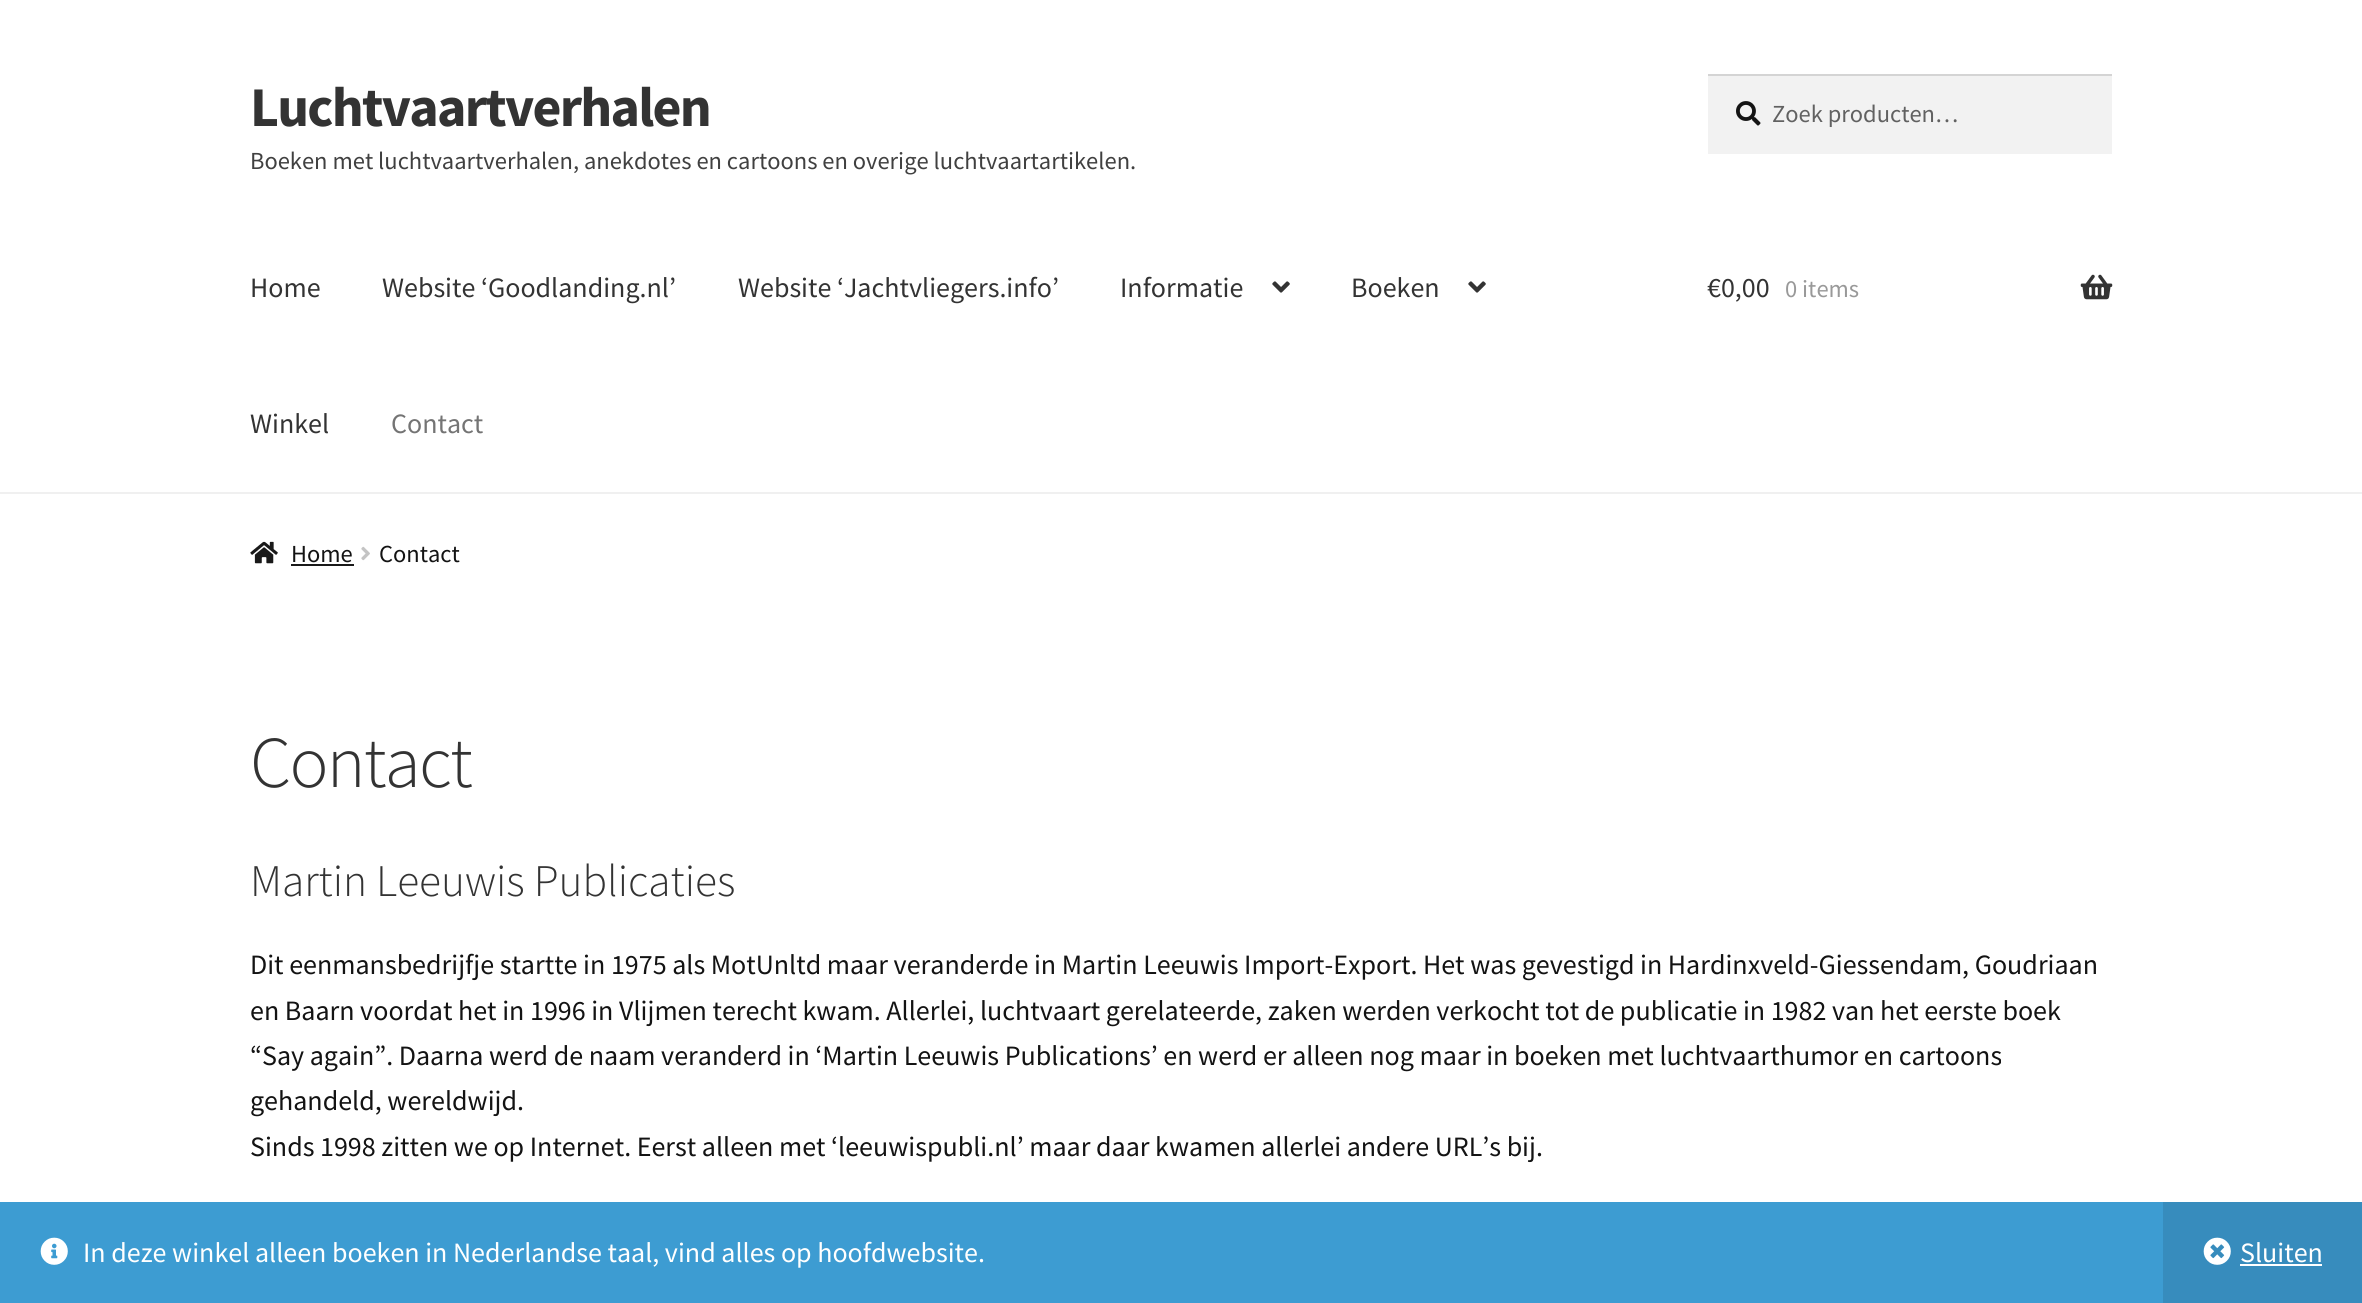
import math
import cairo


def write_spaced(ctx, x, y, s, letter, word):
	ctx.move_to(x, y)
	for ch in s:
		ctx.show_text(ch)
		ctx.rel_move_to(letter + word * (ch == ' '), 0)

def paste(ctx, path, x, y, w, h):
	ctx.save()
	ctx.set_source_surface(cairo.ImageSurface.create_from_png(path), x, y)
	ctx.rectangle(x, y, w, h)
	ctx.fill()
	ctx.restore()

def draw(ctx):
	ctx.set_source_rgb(1, 1, 1)
	ctx.paint()
	ctx.set_source_rgb(0.941, 0.941, 0.941)
	ctx.rectangle(0, 492, 2362, 2)
	ctx.fill()
	ctx.select_font_face('Source Sans Pro', cairo.FONT_SLANT_NORMAL, cairo.FONT_WEIGHT_BOLD)
	ctx.set_font_size(56)
	ctx.set_source_rgb(0.2, 0.2, 0.2)
	write_spaced(ctx, 250, 126, 'Luchtvaartverhalen', -1.75, 0)
	ctx.select_font_face('Source Sans Pro')
	ctx.set_font_size(24.5)
	ctx.set_source_rgb(0.251, 0.251, 0.251)
	ctx.move_to(250, 169)
	ctx.show_text('Boeken met luchtvaartverhalen, anekdotes en cartoons en overige luchtvaartartikelen.')
	ctx.set_source_rgb(0.949, 0.949, 0.949)
	ctx.rectangle(1708, 76, 404, 78)
	ctx.fill()
	paste(ctx, 'media/1.png', 1736, 101, 25, 25)
	ctx.set_source_rgb(0.831, 0.831, 0.831)
	ctx.rectangle(1708, 74, 404, 2)
	ctx.fill()
	ctx.set_source_rgb(0.38, 0.38, 0.38)
	ctx.move_to(1772, 122)
	ctx.show_text('Zoek producten…')
	ctx.set_font_size(28)
	ctx.set_source_rgb(0.2, 0.2, 0.2)
	for x, y, s in [
		(250, 297, 'Home'),
		(382, 297, 'Website ‘Goodlanding.nl’'),
		(738, 297, 'Website ‘Jachtvliegers.info’'),
		(1120, 297, 'Informatie'),
	]:
		ctx.move_to(x, y)
		ctx.show_text(s)
	paste(ctx, 'media/2.png', 1272, 281, 18, 12)
	ctx.move_to(1351, 297)
	ctx.show_text('Boeken')
	paste(ctx, 'media/2.png', 1468, 281, 18, 12)
	ctx.move_to(250, 433)
	ctx.show_text('Winkel')
	ctx.set_source_rgb(0.455, 0.455, 0.455)
	ctx.move_to(391, 433)
	ctx.show_text('Contact')
	ctx.set_source_rgb(0.2, 0.2, 0.2)
	ctx.move_to(1707, 297)
	ctx.show_text('€0,00')
	ctx.set_font_size(24.5)
	ctx.set_source_rgb(0.6, 0.6, 0.6)
	ctx.move_to(1785, 297)
	ctx.show_text('0 items')
	paste(ctx, 'media/3.png', 2080, 274, 33, 26)
	paste(ctx, 'media/4.png', 250, 541, 28, 23)
	ctx.set_source_rgb(0.078, 0.078, 0.078)
	ctx.move_to(291, 562)
	ctx.show_text('Home')
	ctx.set_source_rgb(0.098, 0.098, 0.098)
	ctx.rectangle(291, 564, 63, 2)
	ctx.fill()
	paste(ctx, 'media/5.png', 361, 546, 9, 15)
	ctx.set_source_rgb(0.078, 0.078, 0.078)
	ctx.move_to(379, 562)
	ctx.show_text('Contact')
	ctx.select_font_face('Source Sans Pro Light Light')
	ctx.set_font_size(73)
	ctx.set_source_rgb(0.2, 0.2, 0.2)
	write_spaced(ctx, 250, 787, 'Contact', -1.75, 0)
	ctx.set_font_size(45.25)
	ctx.move_to(250, 896)
	ctx.show_text('Martin Leeuwis Publicaties')
	ctx.select_font_face('Source Sans Pro')
	ctx.set_font_size(28)
	ctx.set_source_rgb(0.078, 0.078, 0.078)
	for x, y, s in [
		(250, 974, 'Dit eenmansbedrijfje startte in 1975 als MotUnltd maar veranderde in Martin Leeuwis Import-Export. Het was gevestigd in Hardinxveld-Giessendam, Goudriaan'),
		(250, 1020, 'en Baarn voordat het in 1996 in Vlijmen terecht kwam. Allerlei, luchtvaart gerelateerde, zaken werden verkocht tot de publicatie in 1982 van het eerste boek'),
		(250, 1065, '“Say again”. Daarna werd de naam veranderd in ‘Martin Leeuwis Publications’ en werd er alleen nog maar in boeken met luchtvaarthumor en cartoons'),
		(250, 1110, 'gehandeld, wereldwijd.'),
		(250, 1156, 'Sinds 1998 zitten we op Internet. Eerst alleen met ‘leeuwispubli.nl’ maar daar kwamen allerlei andere URL’s bij.'),
	]:
		ctx.move_to(x, y)
		ctx.show_text(s)
	ctx.set_source_rgb(0.239, 0.612, 0.824)
	ctx.rectangle(0, 1202, 2163, 101)
	ctx.fill()
	paste(ctx, 'media/6.png', 40, 1237, 28, 28)
	ctx.set_source_rgb(1, 1, 1)
	ctx.move_to(83, 1262)
	ctx.show_text('In deze winkel alleen boeken in Nederlandse taal, vind alles op hoofdwebsite.')
	ctx.set_source_rgb(0.216, 0.549, 0.741)
	ctx.rectangle(2163, 1202, 199, 101)
	ctx.fill()
	paste(ctx, 'media/7.png', 2203, 1237, 28, 28)
	ctx.set_source_rgb(1, 1, 1)
	ctx.move_to(2240, 1262)
	ctx.show_text('Sluiten')
	ctx.rectangle(2240, 1264, 82, 2)
	ctx.fill()


surface = cairo.ImageSurface(cairo.FORMAT_RGB24, 2362, 1303)
ctx = cairo.Context(surface)
options = cairo.FontOptions()
options.set_hint_metrics(cairo.HINT_METRICS_OFF)
options.set_hint_style(cairo.HINT_STYLE_NONE)
ctx.set_font_options(options)
ctx.set_miter_limit(4)
draw(ctx)
surface.write_to_png('image.png')
